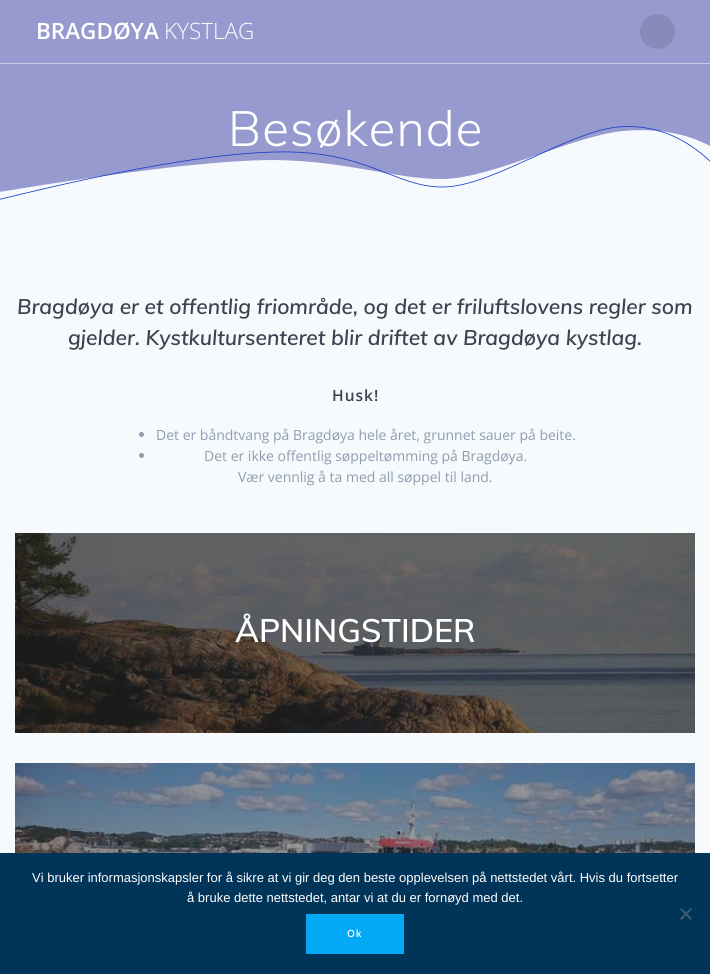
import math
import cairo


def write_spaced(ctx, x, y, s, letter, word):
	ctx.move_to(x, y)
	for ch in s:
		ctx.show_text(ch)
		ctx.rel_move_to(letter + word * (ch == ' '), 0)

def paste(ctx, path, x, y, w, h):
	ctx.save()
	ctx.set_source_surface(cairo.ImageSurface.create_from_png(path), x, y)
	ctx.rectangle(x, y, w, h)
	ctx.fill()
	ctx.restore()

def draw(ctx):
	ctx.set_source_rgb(0.588, 0.604, 0.808)
	ctx.paint()
	ctx.set_source_rgb(0.796, 0.804, 0.906)
	ctx.rectangle(0, 63, 710, 1)
	ctx.fill()
	ctx.select_font_face('Open Sans SemiBold')
	ctx.set_font_size(22.5)
	ctx.set_source_rgb(1, 1, 1)
	ctx.move_to(36, 39)
	ctx.show_text('BRAGDØYA')
	ctx.select_font_face('Open Sans Light')
	ctx.move_to(164, 39)
	ctx.show_text('KYSTLAG')
	ctx.set_source_rgb(0.529, 0.545, 0.725)
	ctx.new_path()
	ctx.arc(657.5, 31.5, 17.5, 0, 2 * math.pi)
	ctx.fill()
	ctx.set_source_rgb(0.961, 0.98, 0.992)
	ctx.new_path()
	ctx.move_to(-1, 192)
	ctx.curve_to(132, 170, 223, 160, 274, 160)
	ctx.curve_to(349, 161, 393, 179, 442, 179)
	ctx.curve_to(491, 179, 572, 136, 623, 131)
	ctx.curve_to(657, 128, 686, 133, 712, 147)
	ctx.line_to(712, 210)
	ctx.line_to(-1, 211)
	ctx.close_path()
	ctx.fill()
	ctx.new_path()
	ctx.move_to(-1, 199.5)
	ctx.curve_to(121, 169.5, 213, 153.5, 274.5, 152)
	ctx.curve_to(367, 149.5, 393.5, 187, 442.5, 187)
	ctx.curve_to(491.5, 187, 567, 132, 618, 127)
	ctx.curve_to(652, 124, 683.5, 135.5, 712, 163)
	ctx.set_source_rgb(0.086, 0.235, 0.792)
	ctx.set_line_width(0.8)
	ctx.stroke()
	ctx.select_font_face('Muli Light')
	ctx.set_font_size(49)
	ctx.set_source_rgb(1, 1, 1)
	write_spaced(ctx, 228, 146, 'Besøkende', 1, 0)
	ctx.set_source_rgb(0.961, 0.98, 0.992)
	ctx.rectangle(0, 210, 710, 643)
	ctx.fill()
	ctx.select_font_face('Muli SemiBold', cairo.FONT_SLANT_ITALIC)
	ctx.set_font_size(21)
	ctx.set_source_rgb(0.235, 0.259, 0.31)
	ctx.move_to(17, 314)
	ctx.show_text('Bragdøya er et offentlig friområde, og det er friluftslovens regler som')
	ctx.move_to(68, 345)
	ctx.show_text('gjelder. Kystkultursenteret blir driftet av Bragdøya kystlag.')
	ctx.select_font_face('Open Sans SemiBold')
	ctx.set_font_size(15.5)
	write_spaced(ctx, 332, 401, 'Husk!', 1, 0)
	ctx.set_source_rgb(0.557, 0.616, 0.682)
	ctx.new_path()
	ctx.arc(141.5, 434.5, 2.5, 0, 2 * math.pi)
	ctx.fill()
	ctx.select_font_face('Open Sans')
	ctx.set_font_size(14)
	ctx.move_to(156, 440)
	ctx.show_text('Det er båndtvang på Bragdøya hele året, grunnet sauer på beite.')
	ctx.new_path()
	ctx.arc(141.5, 455.5, 2.5, 0, 2 * math.pi)
	ctx.fill()
	ctx.move_to(204, 461)
	ctx.show_text('Det er ikke offentlig søppeltømming på Bragdøya.')
	ctx.move_to(238, 482)
	ctx.show_text('Vær vennlig å ta med all søppel til land.')
	ctx.set_source_rgb(0.2, 0.2, 0.2)
	ctx.rectangle(15, 533, 680, 200)
	ctx.fill()
	paste(ctx, 'media/1.png', 15, 533, 680, 200)
	ctx.select_font_face('Muli SemiBold')
	ctx.set_font_size(32.25)
	ctx.set_source_rgb(1, 1, 1)
	ctx.move_to(235, 642)
	ctx.show_text('ÅPNINGSTIDER')
	ctx.set_source_rgb(0.2, 0.2, 0.2)
	ctx.rectangle(15, 763, 680, 90)
	ctx.fill()
	paste(ctx, 'media/2.png', 15, 763, 680, 90)
	ctx.set_source_rgb(0, 0.204, 0.349)
	ctx.rectangle(0, 853, 710, 121)
	ctx.fill()
	ctx.select_font_face('Liberation Sans')
	ctx.set_font_size(13)
	ctx.set_source_rgb(1, 1, 1)
	ctx.move_to(32, 882)
	ctx.show_text('Vi bruker informasjonskapsler for å sikre at vi gir deg den beste opplevelsen på nettstedet vårt. Hvis du fortsetter')
	ctx.move_to(187, 902)
	ctx.show_text('å bruke dette nettstedet, antar vi at du er fornøyd med det.')
	ctx.set_source_rgb(0.251, 0.353, 0.427)
	ctx.new_path()
	ctx.move_to(690.5, 908)
	ctx.line_to(692, 909)
	ctx.line_to(681.5, 920)
	ctx.line_to(680, 918.5)
	ctx.close_path()
	ctx.fill()
	ctx.new_path()
	ctx.move_to(680, 909)
	ctx.line_to(681.5, 908)
	ctx.line_to(692, 918.5)
	ctx.line_to(690.5, 920)
	ctx.close_path()
	ctx.fill()
	ctx.set_source_rgb(0.012, 0.663, 0.957)
	ctx.rectangle(306, 914, 98, 40)
	ctx.fill()
	ctx.select_font_face('Open Sans SemiBold')
	ctx.set_font_size(10)
	ctx.set_source_rgb(1, 1, 1)
	write_spaced(ctx, 347, 937, 'Ok', 1, 0)


surface = cairo.ImageSurface(cairo.FORMAT_RGB24, 710, 974)
ctx = cairo.Context(surface)
options = cairo.FontOptions()
options.set_hint_metrics(cairo.HINT_METRICS_OFF)
options.set_hint_style(cairo.HINT_STYLE_NONE)
ctx.set_font_options(options)
ctx.set_miter_limit(4)
draw(ctx)
surface.write_to_png('image.png')
